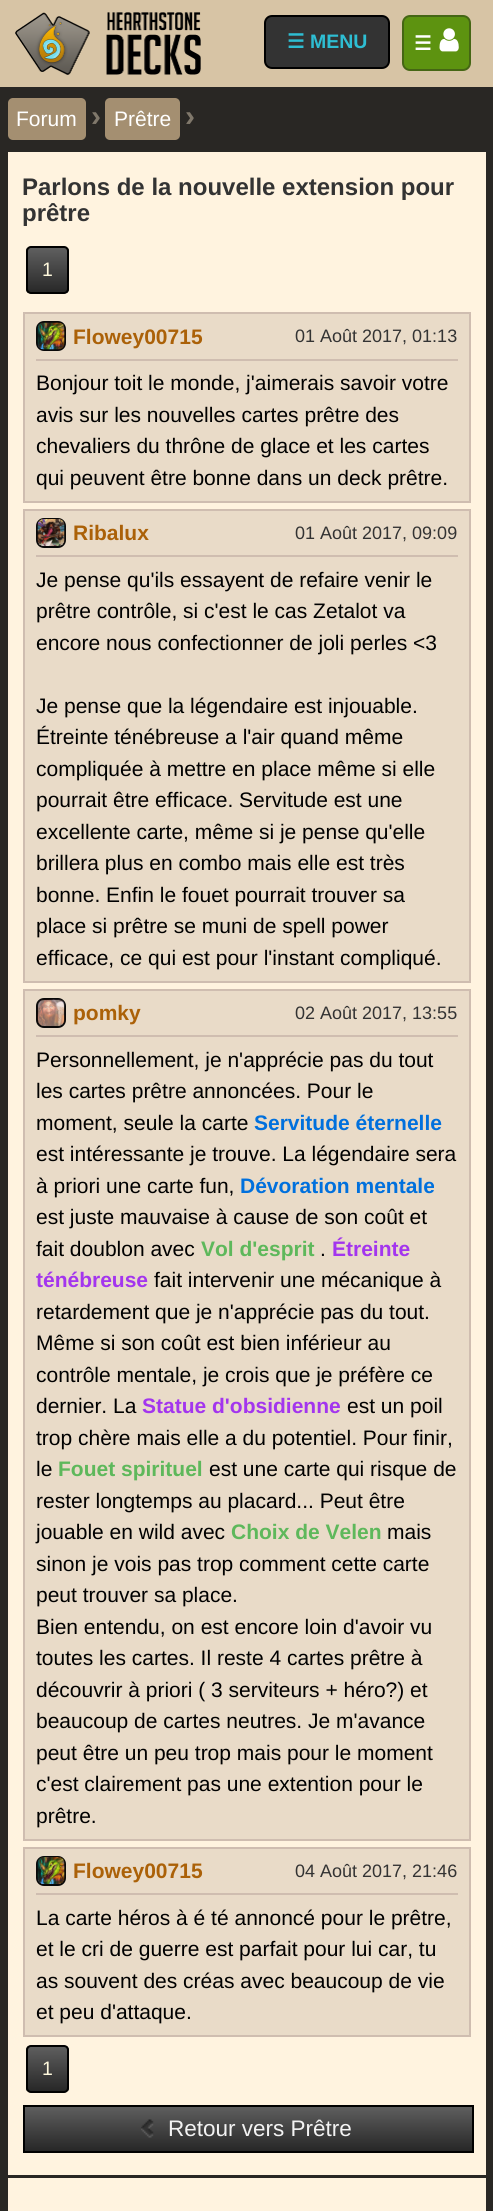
import math
import cairo


def round_path(ctx, x, y, w, h, r):
	ctx.new_sub_path()
	for i, (u, v) in enumerate([(x + w - r, y + h - r), (x + r, y + h - r), (x + r, y + r), (x + w - r, y + r)]):
		ctx.arc(u, v, r, i * math.pi / 2, (i + 1) * math.pi / 2)
	ctx.close_path()

def paste(ctx, path, x, y, w, h):
	ctx.save()
	ctx.set_source_surface(cairo.ImageSurface.create_from_png(path), x, y)
	ctx.rectangle(x, y, w, h)
	ctx.fill()
	ctx.restore()

def draw(ctx):
	ctx.set_source_rgb(0.161, 0.153, 0.141)
	ctx.paint()
	ctx.set_source_rgb(0.843, 0.769, 0.647)
	ctx.rectangle(0, 0, 493, 87)
	ctx.fill()
	paste(ctx, 'media/1.png', 15, 12, 186, 63)
	ctx.set_source_rgb(0.2, 0.2, 0.2)
	round_path(ctx, 265, 16, 124, 52, 7)
	ctx.fill_preserve()
	ctx.set_source_rgb(0, 0, 0)
	ctx.stroke()
	ctx.select_font_face('DejaVu Sans', cairo.FONT_SLANT_NORMAL, cairo.FONT_WEIGHT_BOLD)
	ctx.set_font_size(19.5)
	ctx.set_source_rgb(0.18, 0.745, 0.827)
	ctx.move_to(287, 48)
	ctx.show_text('☰')
	ctx.select_font_face('Liberation Sans', cairo.FONT_SLANT_NORMAL, cairo.FONT_WEIGHT_BOLD)
	ctx.move_to(310, 48)
	ctx.show_text('MENU')
	ctx.set_source_rgb(0.365, 0.576, 0.063)
	round_path(ctx, 403, 16, 67, 54, 7)
	ctx.fill_preserve()
	ctx.set_source_rgb(0.271, 0.4, 0.082)
	ctx.stroke()
	ctx.select_font_face('DejaVu Sans', cairo.FONT_SLANT_NORMAL, cairo.FONT_WEIGHT_BOLD)
	ctx.set_source_rgb(1, 1, 1)
	ctx.move_to(414, 50)
	ctx.show_text('☰')
	paste(ctx, 'media/2.png', 439, 28, 20, 24)
	ctx.set_source_rgb(0.643, 0.561, 0.443)
	round_path(ctx, 8, 98, 78, 42, 5)
	ctx.fill()
	ctx.select_font_face('Liberation Sans')
	ctx.set_font_size(21)
	ctx.set_source_rgb(1, 1, 1)
	ctx.move_to(16, 126)
	ctx.show_text('Forum')
	ctx.select_font_face('Liberation Sans', cairo.FONT_SLANT_NORMAL, cairo.FONT_WEIGHT_BOLD)
	ctx.set_font_size(30)
	ctx.set_source_rgb(0.502, 0.471, 0.42)
	ctx.move_to(91, 126)
	ctx.show_text('›')
	ctx.set_source_rgb(0.643, 0.561, 0.443)
	round_path(ctx, 105, 98, 75, 42, 5)
	ctx.fill()
	ctx.select_font_face('Liberation Sans')
	ctx.set_font_size(21)
	ctx.set_source_rgb(1, 1, 1)
	ctx.move_to(114, 126)
	ctx.show_text('Prêtre')
	ctx.select_font_face('Liberation Sans', cairo.FONT_SLANT_NORMAL, cairo.FONT_WEIGHT_BOLD)
	ctx.set_font_size(30)
	ctx.set_source_rgb(0.502, 0.471, 0.42)
	ctx.move_to(185, 126)
	ctx.show_text('›')
	ctx.set_source_rgb(1, 0.953, 0.875)
	ctx.rectangle(8, 152, 478, 2023)
	ctx.fill()
	ctx.set_font_size(24)
	ctx.set_source_rgb(0.2, 0.2, 0.2)
	ctx.move_to(22, 195)
	ctx.show_text('Parlons de la nouvelle extension pour')
	ctx.move_to(22, 221)
	ctx.show_text('prêtre')
	ctx.save()
	round_path(ctx, 26, 246, 43, 48, 5)
	ctx.clip()
	gradient = cairo.LinearGradient(47, 248, 47, 293)
	gradient.add_color_stop_rgba(0, 0.373, 0.373, 0.373, 1)
	gradient.add_color_stop_rgba(1, 0.153, 0.153, 0.153, 1)
	ctx.set_source(gradient)
	ctx.rectangle(26, 248, 43, 45)
	ctx.fill()
	ctx.restore()
	round_path(ctx, 27, 247, 41, 46, 4)
	ctx.set_source_rgb(0, 0, 0)
	ctx.stroke()
	ctx.select_font_face('Liberation Sans')
	ctx.set_font_size(19.5)
	ctx.set_source_rgb(1, 0.973, 0.867)
	ctx.move_to(42, 276)
	ctx.show_text('1')
	ctx.set_source_rgb(0.914, 0.859, 0.784)
	ctx.rectangle(24, 313, 446, 189)
	ctx.fill_preserve()
	ctx.set_source_rgb(0.812, 0.741, 0.69)
	ctx.stroke()
	ctx.rectangle(36, 359, 422, 2)
	ctx.fill()
	round_path(ctx, 37, 322, 28, 28, 7)
	ctx.set_source_rgb(0.039, 0.039, 0.039)
	ctx.stroke()
	paste(ctx, 'media/3.png', 37, 322, 28, 28)
	ctx.select_font_face('Liberation Sans', cairo.FONT_SLANT_NORMAL, cairo.FONT_WEIGHT_BOLD)
	ctx.set_font_size(21)
	ctx.set_source_rgb(0.671, 0.38, 0.035)
	ctx.move_to(73, 344)
	ctx.show_text('Flowey00715')
	ctx.select_font_face('Liberation Sans')
	ctx.set_font_size(18)
	ctx.set_source_rgb(0.2, 0.2, 0.2)
	ctx.move_to(295, 342)
	ctx.show_text('01 Août 2017, 01:13')
	ctx.set_font_size(21)
	ctx.set_source_rgb(0, 0, 0)
	for x, y, s in [
		(36, 390, 'Bonjour toit le monde, j\'aimerais savoir votre'),
		(36, 422, 'avis sur les nouvelles cartes prêtre des'),
		(36, 453, 'chevaliers du thrône de glace et les cartes'),
		(36, 485, 'qui peuvent être bonne dans un deck prêtre.'),
	]:
		ctx.move_to(x, y)
		ctx.show_text(s)
	ctx.set_source_rgb(0.914, 0.859, 0.784)
	ctx.rectangle(24, 510, 446, 472)
	ctx.fill_preserve()
	ctx.set_source_rgb(0.812, 0.741, 0.69)
	ctx.stroke()
	ctx.rectangle(36, 555, 422, 2)
	ctx.fill()
	round_path(ctx, 37, 519, 28, 28, 7)
	ctx.set_source_rgb(0.039, 0.039, 0.039)
	ctx.stroke()
	paste(ctx, 'media/4.png', 37, 519, 28, 27)
	ctx.select_font_face('Liberation Sans', cairo.FONT_SLANT_NORMAL, cairo.FONT_WEIGHT_BOLD)
	ctx.set_source_rgb(0.671, 0.38, 0.035)
	ctx.move_to(73, 540)
	ctx.show_text('Ribalux')
	ctx.select_font_face('Liberation Sans')
	ctx.set_font_size(18)
	ctx.set_source_rgb(0.2, 0.2, 0.2)
	ctx.move_to(295, 539)
	ctx.show_text('01 Août 2017, 09:09')
	ctx.set_font_size(21)
	ctx.set_source_rgb(0, 0, 0)
	for x, y, s in [
		(36, 587, 'Je pense qu\'ils essayent de refaire venir le'),
		(36, 618, 'prêtre contrôle, si c\'est le cas Zetalot va'),
		(36, 650, 'encore nous confectionner de joli perles <3'),
		(36, 713, 'Je pense que la légendaire est injouable.'),
		(36, 744, 'Étreinte ténébreuse a l\'air quand même'),
		(36, 776, 'compliquée à mettre en place même si elle'),
		(36, 807, 'pourrait être efficace. Servitude est une'),
		(36, 839, 'excellente carte, même si je pense qu\'elle'),
		(36, 870, 'brillera plus en combo mais elle est très'),
		(36, 902, 'bonne. Enfin le fouet pourrait trouver sa'),
		(36, 933, 'place si prêtre se muni de spell power'),
		(36, 965, 'efficace, ce qui est pour l\'instant compliqué.'),
	]:
		ctx.move_to(x, y)
		ctx.show_text(s)
	ctx.set_source_rgb(0.914, 0.859, 0.784)
	ctx.rectangle(24, 990, 446, 850)
	ctx.fill_preserve()
	ctx.set_source_rgb(0.812, 0.741, 0.69)
	ctx.stroke()
	ctx.rectangle(36, 1035, 422, 2)
	ctx.fill()
	round_path(ctx, 37, 999, 28, 28, 7)
	ctx.set_source_rgb(0.039, 0.039, 0.039)
	ctx.stroke()
	paste(ctx, 'media/5.png', 37, 999, 28, 27)
	ctx.select_font_face('Liberation Sans', cairo.FONT_SLANT_NORMAL, cairo.FONT_WEIGHT_BOLD)
	ctx.set_source_rgb(0.671, 0.38, 0.035)
	ctx.move_to(73, 1020)
	ctx.show_text('pomky')
	ctx.select_font_face('Liberation Sans')
	ctx.set_font_size(18)
	ctx.set_source_rgb(0.2, 0.2, 0.2)
	ctx.move_to(295, 1019)
	ctx.show_text('02 Août 2017, 13:55')
	ctx.set_font_size(21)
	ctx.set_source_rgb(0, 0, 0)
	for x, y, s in [
		(36, 1067, 'Personnellement, je n\'apprécie pas du tout'),
		(36, 1098, 'les cartes prêtre annoncées. Pour le'),
		(36, 1130, 'moment, seule la carte'),
	]:
		ctx.move_to(x, y)
		ctx.show_text(s)
	ctx.select_font_face('Liberation Sans', cairo.FONT_SLANT_NORMAL, cairo.FONT_WEIGHT_BOLD)
	ctx.set_source_rgb(0, 0.439, 0.867)
	ctx.move_to(254, 1130)
	ctx.show_text('Servitude éternelle')
	ctx.select_font_face('Liberation Sans')
	ctx.set_source_rgb(0, 0, 0)
	ctx.move_to(36, 1161)
	ctx.show_text('est intéressante je trouve. La légendaire sera')
	ctx.move_to(36, 1193)
	ctx.show_text('à priori une carte fun,')
	ctx.select_font_face('Liberation Sans', cairo.FONT_SLANT_NORMAL, cairo.FONT_WEIGHT_BOLD)
	ctx.set_source_rgb(0, 0.439, 0.867)
	ctx.move_to(240, 1193)
	ctx.show_text('Dévoration mentale')
	ctx.select_font_face('Liberation Sans')
	ctx.set_source_rgb(0, 0, 0)
	ctx.move_to(36, 1224)
	ctx.show_text('est juste mauvaise à cause de son coût et')
	ctx.move_to(36, 1256)
	ctx.show_text('fait doublon avec')
	ctx.select_font_face('Liberation Sans', cairo.FONT_SLANT_NORMAL, cairo.FONT_WEIGHT_BOLD)
	ctx.set_source_rgb(0.369, 0.722, 0.357)
	ctx.move_to(201, 1256)
	ctx.show_text('Vol d\'esprit')
	ctx.select_font_face('Liberation Sans')
	ctx.set_source_rgb(0, 0, 0)
	ctx.move_to(320, 1256)
	ctx.show_text('.')
	ctx.select_font_face('Liberation Sans', cairo.FONT_SLANT_NORMAL, cairo.FONT_WEIGHT_BOLD)
	ctx.set_source_rgb(0.639, 0.208, 0.933)
	ctx.move_to(332, 1256)
	ctx.show_text('Étreinte')
	ctx.move_to(36, 1287)
	ctx.show_text('ténébreuse')
	ctx.select_font_face('Liberation Sans')
	ctx.set_source_rgb(0, 0, 0)
	for x, y, s in [
		(154, 1287, 'fait intervenir une mécanique à'),
		(36, 1319, 'retardement que je n\'apprécie pas du tout.'),
		(36, 1350, 'Même si son coût est bien inférieur au'),
		(36, 1382, 'contrôle mentale, je crois que je préfère ce'),
		(36, 1413, 'dernier. La'),
	]:
		ctx.move_to(x, y)
		ctx.show_text(s)
	ctx.select_font_face('Liberation Sans', cairo.FONT_SLANT_NORMAL, cairo.FONT_WEIGHT_BOLD)
	ctx.set_source_rgb(0.639, 0.208, 0.933)
	ctx.move_to(142, 1413)
	ctx.show_text('Statue d\'obsidienne')
	ctx.select_font_face('Liberation Sans')
	ctx.set_source_rgb(0, 0, 0)
	for x, y, s in [
		(347, 1413, 'est un poil'),
		(36, 1445, 'trop chère mais elle a du potentiel. Pour finir,'),
		(36, 1476, 'le'),
	]:
		ctx.move_to(x, y)
		ctx.show_text(s)
	ctx.select_font_face('Liberation Sans', cairo.FONT_SLANT_NORMAL, cairo.FONT_WEIGHT_BOLD)
	ctx.set_source_rgb(0.369, 0.722, 0.357)
	ctx.move_to(58, 1476)
	ctx.show_text('Fouet spirituel')
	ctx.select_font_face('Liberation Sans')
	ctx.set_source_rgb(0, 0, 0)
	for x, y, s in [
		(209, 1476, 'est une carte qui risque de'),
		(36, 1508, 'rester longtemps au placard... Peut être'),
		(36, 1539, 'jouable en wild avec'),
	]:
		ctx.move_to(x, y)
		ctx.show_text(s)
	ctx.select_font_face('Liberation Sans', cairo.FONT_SLANT_NORMAL, cairo.FONT_WEIGHT_BOLD)
	ctx.set_source_rgb(0.369, 0.722, 0.357)
	ctx.move_to(231, 1539)
	ctx.show_text('Choix de Velen')
	ctx.select_font_face('Liberation Sans')
	ctx.set_source_rgb(0, 0, 0)
	for x, y, s in [
		(387, 1539, 'mais'),
		(36, 1571, 'sinon je vois pas trop comment cette carte'),
		(36, 1602, 'peut trouver sa place.'),
		(36, 1634, 'Bien entendu, on est encore loin d\'avoir vu'),
		(36, 1665, 'toutes les cartes. Il reste 4 cartes prêtre à'),
		(36, 1697, 'découvrir à priori ( 3 serviteurs + héro?) et'),
		(36, 1728, 'beaucoup de cartes neutres. Je m\'avance'),
		(36, 1760, 'peut être un peu trop mais pour le moment'),
		(36, 1791, 'c\'est clairement pas une extention pour le'),
		(36, 1823, 'prêtre.'),
	]:
		ctx.move_to(x, y)
		ctx.show_text(s)
	ctx.set_source_rgb(0.914, 0.859, 0.784)
	ctx.rectangle(24, 1848, 446, 188)
	ctx.fill_preserve()
	ctx.set_source_rgb(0.812, 0.741, 0.69)
	ctx.stroke()
	ctx.rectangle(36, 1893, 422, 2)
	ctx.fill()
	round_path(ctx, 37, 1857, 28, 28, 7)
	ctx.set_source_rgb(0.039, 0.039, 0.039)
	ctx.stroke()
	paste(ctx, 'media/6.png', 37, 1857, 28, 27)
	ctx.select_font_face('Liberation Sans', cairo.FONT_SLANT_NORMAL, cairo.FONT_WEIGHT_BOLD)
	ctx.set_source_rgb(0.671, 0.38, 0.035)
	ctx.move_to(73, 1878)
	ctx.show_text('Flowey00715')
	ctx.select_font_face('Liberation Sans')
	ctx.set_font_size(18)
	ctx.set_source_rgb(0.2, 0.2, 0.2)
	ctx.move_to(295, 1877)
	ctx.show_text('04 Août 2017, 21:46')
	ctx.set_font_size(21)
	ctx.set_source_rgb(0, 0, 0)
	for x, y, s in [
		(36, 1925, 'La carte héros à é té annoncé pour le prêtre,'),
		(36, 1956, 'et le cri de guerre est parfait pour lui car, tu'),
		(36, 1988, 'as souvent des créas avec beaucoup de vie'),
		(36, 2019, 'et peu d\'attaque.'),
	]:
		ctx.move_to(x, y)
		ctx.show_text(s)
	ctx.save()
	round_path(ctx, 26, 2045, 43, 48, 5)
	ctx.clip()
	gradient = cairo.LinearGradient(47, 2046, 47, 2091)
	gradient.add_color_stop_rgba(0, 0.373, 0.373, 0.373, 1)
	gradient.add_color_stop_rgba(1, 0.153, 0.153, 0.153, 1)
	ctx.set_source(gradient)
	ctx.rectangle(26, 2046, 43, 45)
	ctx.fill()
	ctx.restore()
	round_path(ctx, 27, 2046, 41, 46, 4)
	ctx.stroke()
	ctx.set_font_size(19.5)
	ctx.set_source_rgb(1, 0.973, 0.867)
	ctx.move_to(42, 2075)
	ctx.show_text('1')
	gradient = cairo.LinearGradient(248, 2106, 248, 2151)
	gradient.add_color_stop_rgba(0, 0.373, 0.373, 0.373, 1)
	gradient.add_color_stop_rgba(1, 0.153, 0.153, 0.153, 1)
	ctx.set_source(gradient)
	ctx.rectangle(25, 2107, 447, 44)
	ctx.fill()
	ctx.rectangle(24, 2106, 449, 46)
	ctx.set_source_rgb(0, 0, 0)
	ctx.stroke()
	paste(ctx, 'media/7.png', 141, 2119, 13, 19)
	ctx.set_font_size(22.5)
	ctx.set_source_rgb(0.953, 0.953, 0.953)
	ctx.move_to(168, 2136)
	ctx.show_text('Retour vers Prêtre')
	ctx.set_source_rgb(1, 0.953, 0.875)
	ctx.rectangle(8, 2178, 478, 33)
	ctx.fill()


surface = cairo.ImageSurface(cairo.FORMAT_RGB24, 493, 2211)
ctx = cairo.Context(surface)
options = cairo.FontOptions()
options.set_hint_metrics(cairo.HINT_METRICS_OFF)
options.set_hint_style(cairo.HINT_STYLE_NONE)
ctx.set_font_options(options)
ctx.set_miter_limit(4)
draw(ctx)
surface.write_to_png('image.png')
